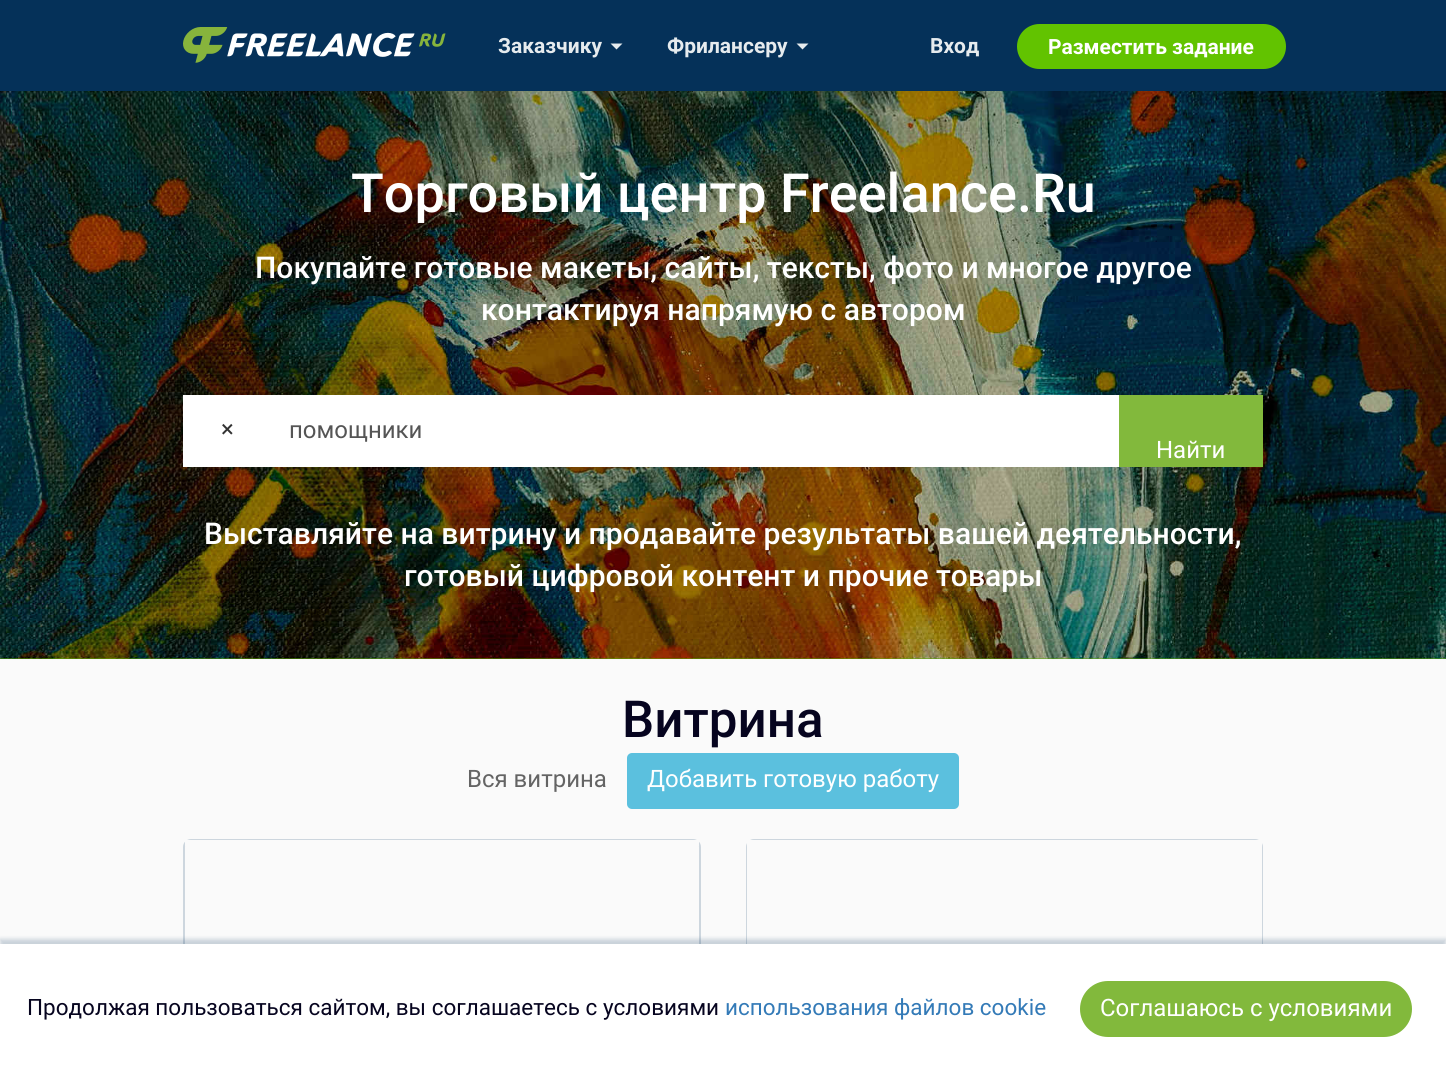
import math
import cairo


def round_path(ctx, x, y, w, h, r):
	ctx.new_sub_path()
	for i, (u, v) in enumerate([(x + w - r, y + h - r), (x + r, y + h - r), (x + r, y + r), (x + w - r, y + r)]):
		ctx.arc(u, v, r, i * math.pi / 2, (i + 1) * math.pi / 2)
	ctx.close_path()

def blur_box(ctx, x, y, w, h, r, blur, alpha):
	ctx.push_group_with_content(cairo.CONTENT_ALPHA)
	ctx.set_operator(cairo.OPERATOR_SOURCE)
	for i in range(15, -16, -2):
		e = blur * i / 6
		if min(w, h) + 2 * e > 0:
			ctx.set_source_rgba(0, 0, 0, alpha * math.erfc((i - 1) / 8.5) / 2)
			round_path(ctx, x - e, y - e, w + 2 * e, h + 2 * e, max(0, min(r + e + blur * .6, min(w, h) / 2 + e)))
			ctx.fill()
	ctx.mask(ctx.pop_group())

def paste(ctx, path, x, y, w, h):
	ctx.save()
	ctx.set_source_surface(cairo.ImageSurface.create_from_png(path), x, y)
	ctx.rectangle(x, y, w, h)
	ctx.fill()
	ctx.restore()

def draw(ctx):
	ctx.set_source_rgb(0.98, 0.98, 0.98)
	ctx.paint()
	ctx.set_source_rgb(0.02, 0.192, 0.349)
	ctx.rectangle(0, 0, 1446, 91)
	ctx.fill()
	paste(ctx, 'media/1.png', 183, 27, 263, 36)
	ctx.select_font_face('Roboto', cairo.FONT_SLANT_NORMAL, cairo.FONT_WEIGHT_BOLD)
	ctx.set_font_size(21)
	ctx.set_source_rgb(0.902, 0.918, 0.933)
	ctx.move_to(498, 53)
	ctx.show_text('Заказчику')
	ctx.new_path()
	ctx.move_to(610.5, 43.5)
	ctx.line_to(622.5, 43.5)
	ctx.line_to(616.5, 49.5)
	ctx.close_path()
	ctx.fill()
	ctx.move_to(667, 53)
	ctx.show_text('Фрилансеру')
	ctx.new_path()
	ctx.move_to(796.5, 43.5)
	ctx.line_to(808.5, 43.5)
	ctx.line_to(802.5, 49.5)
	ctx.close_path()
	ctx.fill()
	ctx.move_to(930, 53)
	ctx.show_text('Вход')
	ctx.set_source_rgb(0.384, 0.765, 0)
	round_path(ctx, 1018, 25, 267, 43, 21.5)
	ctx.fill_preserve()
	ctx.stroke()
	ctx.set_source_rgb(1, 1, 1)
	ctx.move_to(1048, 54)
	ctx.show_text('Разместить задание')
	ctx.set_source_rgb(0.329, 0.659, 0)
	ctx.rectangle(0, 658, 1446, 1)
	ctx.fill()
	paste(ctx, 'media/2.png', 0, 91, 1446, 568)
	ctx.select_font_face('Roboto Medium')
	ctx.set_font_size(54)
	ctx.set_source_rgb(1, 1, 1)
	ctx.move_to(351, 212)
	ctx.show_text('Торговый центр Freelance.Ru')
	ctx.set_font_size(30)
	ctx.move_to(255, 278)
	ctx.show_text('Покупайте готовые макеты, сайты, тексты, фото и многое другое')
	ctx.move_to(481, 320)
	ctx.show_text('контактируя напрямую с автором')
	ctx.rectangle(183, 395, 936, 72)
	ctx.fill()
	ctx.select_font_face('Roboto')
	ctx.set_font_size(24)
	ctx.set_source_rgb(0.2, 0.2, 0.2)
	ctx.move_to(221, 437)
	ctx.show_text('×')
	ctx.set_source_rgb(0.333, 0.333, 0.333)
	ctx.move_to(289, 438)
	ctx.show_text('помощники')
	ctx.set_source_rgb(0.51, 0.725, 0.235)
	ctx.rectangle(1119, 395, 144, 72)
	ctx.fill()
	ctx.set_source_rgb(1, 1, 1)
	ctx.move_to(1156, 458)
	ctx.show_text('Найти')
	ctx.select_font_face('Roboto Medium')
	ctx.set_font_size(30)
	ctx.move_to(204, 544)
	ctx.show_text('Выставляйте на витрину и продавайте результаты вашей деятельности,')
	ctx.move_to(404, 586)
	ctx.show_text('готовый цифровой контент и прочие товары')
	ctx.set_font_size(51)
	ctx.set_source_rgb(0.024, 0.016, 0.122)
	ctx.move_to(622, 737)
	ctx.show_text('Витрина')
	ctx.select_font_face('Roboto')
	ctx.set_font_size(24)
	ctx.set_source_rgb(0.392, 0.392, 0.392)
	ctx.move_to(467, 787)
	ctx.show_text('Вся витрина')
	ctx.set_source_rgb(0.357, 0.753, 0.871)
	round_path(ctx, 627, 753, 332, 56, 5)
	ctx.fill()
	ctx.set_source_rgb(1, 1, 1)
	ctx.move_to(647, 787)
	ctx.show_text('Добавить готовую работу')
	round_path(ctx, 184, 840, 516, 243, 7)
	ctx.set_source_rgb(0.804, 0.839, 0.871)
	ctx.stroke()
	ctx.set_source_rgb(0.98, 0.98, 0.98)
	ctx.rectangle(185, 840, 514, 6)
	ctx.fill()
	round_path(ctx, 747, 840, 515, 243, 7)
	ctx.set_source_rgb(0.804, 0.839, 0.871)
	ctx.stroke()
	ctx.set_source_rgb(0.98, 0.98, 0.98)
	ctx.rectangle(747, 840, 515, 104)
	ctx.fill()
	ctx.set_source_rgb(0.02, 0.192, 0.349)
	blur_box(ctx, 0, 939, 1446, 131, 0, 2, 0.2)
	ctx.set_source_rgb(1, 1, 1)
	ctx.rectangle(0, 944, 1446, 130)
	ctx.fill()
	ctx.set_font_size(22.5)
	ctx.set_source_rgb(0.024, 0.016, 0.122)
	ctx.move_to(27, 1015)
	ctx.show_text('Продолжая пользоваться сайтом, вы соглашаетесь с условиями')
	ctx.set_source_rgb(0.2, 0.478, 0.718)
	ctx.move_to(725, 1015)
	ctx.show_text('использования файлов cookie')
	ctx.set_source_rgb(0.51, 0.725, 0.235)
	round_path(ctx, 1080, 981, 332, 56, 28)
	ctx.fill()
	ctx.set_font_size(24)
	ctx.set_source_rgb(1, 1, 1)
	ctx.move_to(1100, 1016)
	ctx.show_text('Соглашаюсь с условиями')


surface = cairo.ImageSurface(cairo.FORMAT_RGB24, 1446, 1074)
ctx = cairo.Context(surface)
options = cairo.FontOptions()
options.set_hint_metrics(cairo.HINT_METRICS_OFF)
options.set_hint_style(cairo.HINT_STYLE_NONE)
ctx.set_font_options(options)
ctx.set_miter_limit(4)
draw(ctx)
surface.write_to_png('image.png')
